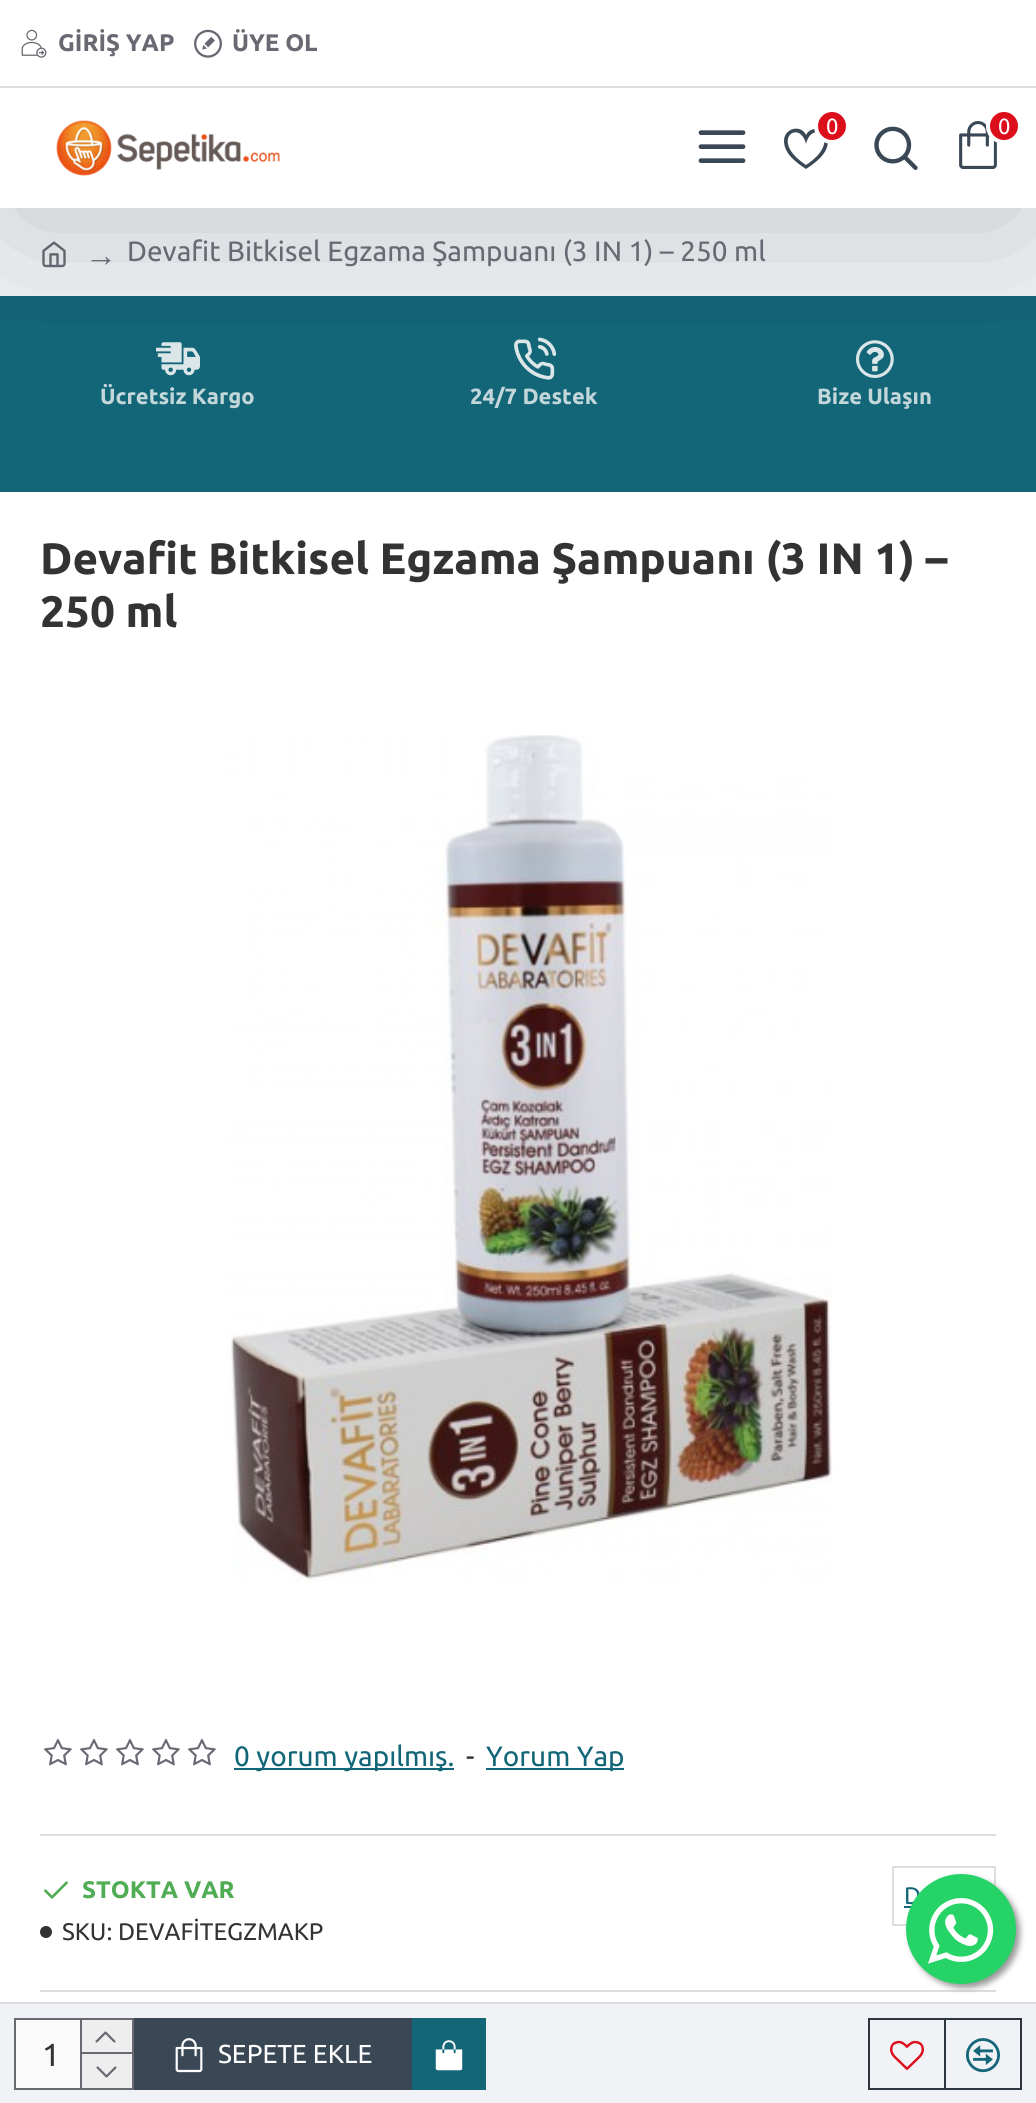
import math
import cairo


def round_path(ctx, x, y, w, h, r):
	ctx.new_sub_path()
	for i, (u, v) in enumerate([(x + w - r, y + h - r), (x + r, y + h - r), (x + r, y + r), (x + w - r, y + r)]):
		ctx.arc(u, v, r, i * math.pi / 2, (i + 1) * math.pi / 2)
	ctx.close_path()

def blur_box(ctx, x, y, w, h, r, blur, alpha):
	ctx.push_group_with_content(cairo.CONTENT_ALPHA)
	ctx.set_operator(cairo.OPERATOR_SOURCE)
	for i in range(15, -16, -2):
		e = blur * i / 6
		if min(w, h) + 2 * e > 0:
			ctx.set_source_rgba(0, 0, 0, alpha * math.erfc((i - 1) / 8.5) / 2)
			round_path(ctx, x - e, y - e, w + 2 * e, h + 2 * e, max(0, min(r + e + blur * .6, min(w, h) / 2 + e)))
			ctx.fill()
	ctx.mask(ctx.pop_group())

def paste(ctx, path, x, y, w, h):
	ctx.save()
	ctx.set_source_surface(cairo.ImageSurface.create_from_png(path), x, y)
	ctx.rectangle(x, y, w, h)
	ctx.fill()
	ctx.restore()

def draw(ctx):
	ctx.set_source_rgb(1, 1, 1)
	ctx.paint()
	ctx.set_source_rgb(0.941, 0.949, 0.961)
	ctx.rectangle(0, 208, 1036, 88)
	ctx.fill()
	paste(ctx, 'media/7.png', 42, 241, 24, 27)
	ctx.set_source_rgb(0.078, 0.4, 0.471)
	ctx.rectangle(0, 296, 1036, 196)
	ctx.fill()
	paste(ctx, 'media/8.png', 156, 342, 44, 34)
	paste(ctx, 'media/9.png', 514, 337, 43, 43)
	paste(ctx, 'media/10.png', 856, 340, 38, 38)
	ctx.save()
	ctx.rectangle(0, 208, 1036, 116)
	ctx.clip()
	ctx.set_source_rgb(0, 0, 0)
	blur_box(ctx, 20, 138, 996, 80, 0, 90, 0.2)
	ctx.restore()
	ctx.set_source_rgb(1, 1, 1)
	ctx.rectangle(0, 0, 1036, 86)
	ctx.fill()
	ctx.set_source_rgb(0.867, 0.867, 0.867)
	ctx.rectangle(0, 86, 1036, 2)
	ctx.fill()
	paste(ctx, 'media/1.png', 21, 29, 26, 29)
	ctx.select_font_face('Ubuntu', cairo.FONT_SLANT_NORMAL, cairo.FONT_WEIGHT_BOLD)
	ctx.set_font_size(24)
	ctx.set_source_rgb(0.412, 0.412, 0.451)
	ctx.move_to(58, 51)
	ctx.show_text('GİRİŞ YAP')
	paste(ctx, 'media/2.png', 194, 29, 28, 29)
	ctx.move_to(232, 51)
	ctx.show_text('ÜYE OL')
	paste(ctx, 'media/3.png', 56, 120, 224, 56)
	paste(ctx, 'media/4.png', 698, 130, 48, 33)
	ctx.set_source_rgb(0.227, 0.278, 0.329)
	ctx.new_path()
	ctx.move_to(806, 144)
	ctx.curve_to(812, 118, 844, 140, 806, 165)
	ctx.curve_to(768, 140, 800, 118, 806, 144)
	ctx.close_path()
	ctx.move_to(784, 141)
	ctx.curve_to(784, 154, 797, 163, 806, 169)
	ctx.curve_to(815, 163, 828, 154, 828, 141)
	ctx.curve_to(828, 139, 827, 136, 826, 134)
	ctx.curve_to(821, 127, 810, 127, 806, 135)
	ctx.curve_to(801, 124, 784, 128, 784, 141)
	ctx.close_path()
	ctx.fill()
	ctx.set_source_rgb(0.867, 0.055, 0.11)
	ctx.arc(832, 126, 16, 0, 2 * math.pi)
	ctx.fill_preserve()
	ctx.set_source_rgb(1, 1, 1)
	ctx.set_line_width(4)
	ctx.stroke()
	ctx.select_font_face('Ubuntu')
	ctx.set_font_size(22)
	ctx.move_to(826, 134)
	ctx.show_text('0')
	paste(ctx, 'media/5.png', 874, 126, 44, 44)
	paste(ctx, 'media/6.png', 959, 121, 38, 48)
	ctx.set_source_rgb(0.867, 0.055, 0.11)
	ctx.arc(1004, 126, 16, 0, 2 * math.pi)
	ctx.fill_preserve()
	ctx.set_source_rgb(1, 1, 1)
	ctx.stroke()
	ctx.move_to(998, 134)
	ctx.show_text('0')
	ctx.select_font_face('Liberation Serif')
	ctx.set_font_size(32)
	ctx.set_source_rgb(0.412, 0.412, 0.451)
	ctx.move_to(85, 266)
	ctx.show_text('→')
	ctx.select_font_face('Ubuntu')
	ctx.set_font_size(28)
	ctx.move_to(127, 261)
	ctx.show_text('Devafit Bitkisel Egzama Şampuanı (3 IN 1) – 250 ml')
	ctx.select_font_face('Ubuntu', cairo.FONT_SLANT_NORMAL, cairo.FONT_WEIGHT_BOLD)
	ctx.set_font_size(22)
	ctx.set_source_rgb(0.765, 0.843, 0.859)
	for x, y, s in [
		(100, 404, 'Ücretsiz Kargo'),
		(470, 404, '24/7 Destek'),
		(817, 404, 'Bize Ulaşın'),
	]:
		ctx.move_to(x, y)
		ctx.show_text(s)
	ctx.set_font_size(44)
	ctx.set_source_rgb(0.2, 0.2, 0.2)
	ctx.move_to(40, 574)
	ctx.show_text('Devafit Bitkisel Egzama Şampuanı (3 IN 1) –')
	ctx.move_to(40, 627)
	ctx.show_text('250 ml')
	paste(ctx, 'media/11.png', 228, 735, 605, 847)
	ctx.set_source_rgb(0.867, 0.867, 0.867)
	ctx.rectangle(40, 1834, 956, 2)
	ctx.fill()
	paste(ctx, 'media/12.png', 44, 1738, 28, 28)
	paste(ctx, 'media/12.png', 80, 1738, 28, 28)
	paste(ctx, 'media/12.png', 116, 1738, 28, 28)
	paste(ctx, 'media/12.png', 152, 1738, 28, 28)
	paste(ctx, 'media/12.png', 188, 1738, 28, 28)
	ctx.set_source_rgb(0.078, 0.4, 0.471)
	ctx.rectangle(234, 1768, 220, 2)
	ctx.fill()
	ctx.select_font_face('Ubuntu')
	ctx.set_font_size(28)
	ctx.move_to(234, 1766)
	ctx.show_text('0 yorum yapılmış.')
	ctx.set_source_rgb(0.2, 0.2, 0.2)
	ctx.move_to(466, 1766)
	ctx.show_text('-')
	ctx.set_source_rgb(0.078, 0.4, 0.471)
	ctx.rectangle(486, 1768, 138, 2)
	ctx.fill()
	ctx.move_to(486, 1766)
	ctx.show_text('Yorum Yap')
	ctx.set_source_rgb(0.867, 0.867, 0.867)
	ctx.rectangle(40, 1990, 956, 2)
	ctx.fill()
	paste(ctx, 'media/13.png', 44, 1881, 24, 18)
	ctx.select_font_face('Ubuntu', cairo.FONT_SLANT_NORMAL, cairo.FONT_WEIGHT_BOLD)
	ctx.set_font_size(24)
	ctx.set_source_rgb(0.314, 0.678, 0.333)
	ctx.move_to(82, 1898)
	ctx.show_text('STOKTA VAR')
	paste(ctx, 'media/14.png', 40, 1926, 12, 12)
	ctx.select_font_face('Ubuntu')
	ctx.set_source_rgb(0.2, 0.2, 0.2)
	ctx.move_to(62, 1940)
	ctx.show_text('SKU:')
	ctx.move_to(118, 1940)
	ctx.show_text('DEVAFİTEGZMAKP')
	ctx.rectangle(893, 1867, 102, 58)
	ctx.set_source_rgb(0.867, 0.867, 0.867)
	ctx.set_line_width(2)
	ctx.stroke()
	ctx.set_source_rgb(0.078, 0.4, 0.471)
	ctx.move_to(904, 1904)
	ctx.show_text('D')
	ctx.rectangle(904, 1906, 8, 2)
	ctx.fill()
	ctx.set_source_rgb(0.941, 0.949, 0.961)
	ctx.rectangle(0, 2004, 1036, 99)
	ctx.fill()
	ctx.set_source_rgb(0.867, 0.867, 0.867)
	ctx.rectangle(0, 2002, 1036, 2)
	ctx.fill()
	ctx.rectangle(15, 2019, 118, 70)
	ctx.set_source_rgb(0.412, 0.412, 0.451)
	ctx.stroke()
	ctx.set_source_rgb(0.98, 0.98, 0.98)
	ctx.rectangle(16, 2020, 64, 68)
	ctx.fill()
	ctx.set_font_size(32)
	ctx.set_source_rgb(0.2, 0.2, 0.2)
	ctx.move_to(42, 2066)
	ctx.show_text('1')
	ctx.set_source_rgb(0.412, 0.412, 0.451)
	ctx.rectangle(80, 2020, 2, 68)
	ctx.fill()
	ctx.set_source_rgb(0.933, 0.933, 0.933)
	ctx.rectangle(82, 2020, 50, 32)
	ctx.fill()
	ctx.set_source_rgb(0.412, 0.412, 0.451)
	ctx.rectangle(82, 2052, 50, 2)
	ctx.fill()
	paste(ctx, 'media/15.png', 95, 2031, 21, 12)
	ctx.set_source_rgb(0.933, 0.933, 0.933)
	ctx.rectangle(82, 2054, 50, 34)
	ctx.fill()
	paste(ctx, 'media/16.png', 96, 2066, 21, 12)
	ctx.set_source_rgb(0.227, 0.278, 0.329)
	ctx.rectangle(134, 2018, 278, 72)
	ctx.fill()
	paste(ctx, 'media/17.png', 175, 2038, 28, 35)
	ctx.set_font_size(26)
	ctx.set_source_rgb(1, 1, 1)
	ctx.move_to(218, 2063)
	ctx.show_text('SEPETE EKLE')
	ctx.set_source_rgb(0.078, 0.4, 0.471)
	ctx.rectangle(412, 2018, 74, 72)
	ctx.fill()
	paste(ctx, 'media/18.png', 435, 2040, 28, 31)
	ctx.rectangle(869, 2019, 76, 70)
	ctx.set_source_rgb(0.173, 0.212, 0.251)
	ctx.stroke()
	paste(ctx, 'media/19.png', 890, 2040, 34, 30)
	ctx.rectangle(945, 2019, 76, 70)
	ctx.stroke()
	paste(ctx, 'media/20.png', 966, 2038, 34, 35)
	ctx.set_source_rgb(0.6, 0.6, 0.6)
	blur_box(ctx, 910, 1878, 110, 110, 55, 3, 1)
	ctx.set_source_rgb(0.145, 0.827, 0.4)
	ctx.arc(961, 1929, 55, 0, 2 * math.pi)
	ctx.fill()
	paste(ctx, 'media/21.png', 928, 1898, 66, 66)


surface = cairo.ImageSurface(cairo.FORMAT_RGB24, 1036, 2103)
ctx = cairo.Context(surface)
options = cairo.FontOptions()
options.set_hint_metrics(cairo.HINT_METRICS_OFF)
options.set_hint_style(cairo.HINT_STYLE_NONE)
ctx.set_font_options(options)
ctx.set_miter_limit(4)
draw(ctx)
surface.write_to_png('image.png')
